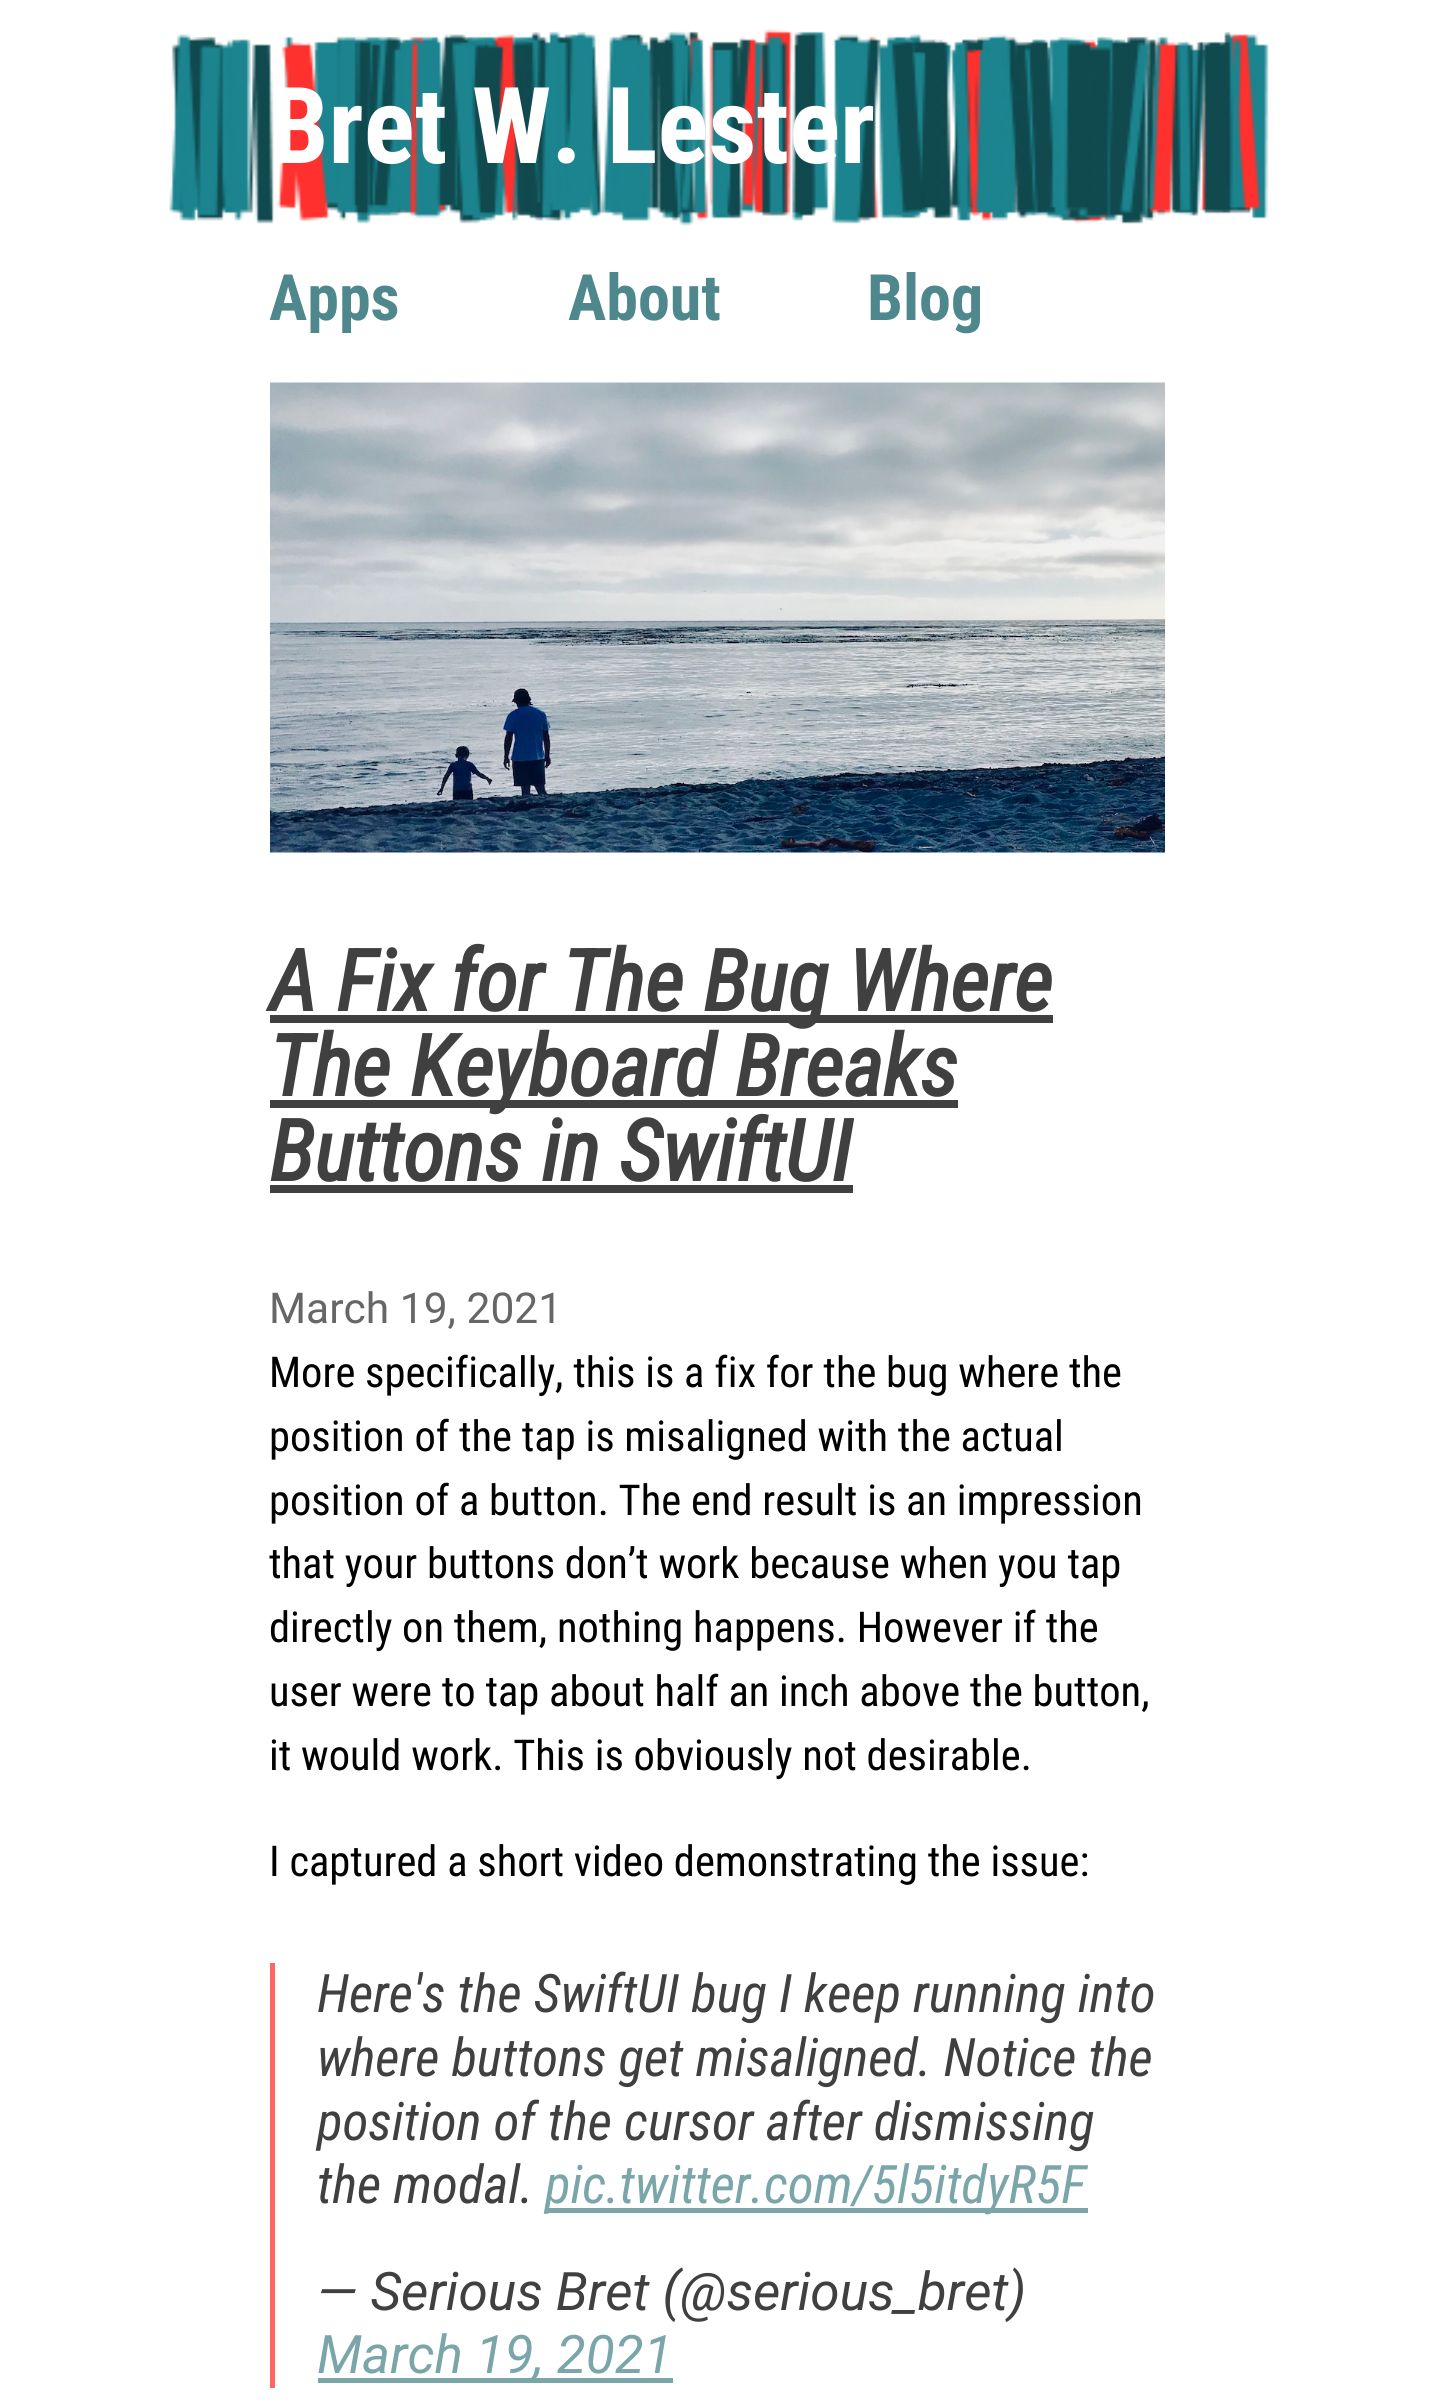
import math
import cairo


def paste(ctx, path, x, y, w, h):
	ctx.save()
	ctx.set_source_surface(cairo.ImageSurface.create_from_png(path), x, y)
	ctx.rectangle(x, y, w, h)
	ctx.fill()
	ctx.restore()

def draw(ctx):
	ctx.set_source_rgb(1, 1, 1)
	ctx.paint()
	paste(ctx, 'media/1.png', 169, 29, 1100, 197)
	ctx.select_font_face('Roboto Condensed', cairo.FONT_SLANT_NORMAL, cairo.FONT_WEIGHT_BOLD)
	ctx.set_font_size(106.25)
	ctx.set_source_rgb(1, 1, 1)
	ctx.move_to(269, 163)
	ctx.show_text('Bret W. Lester')
	ctx.set_font_size(64)
	ctx.set_source_rgb(0.306, 0.529, 0.549)
	for x, y, s in [
		(269, 320, 'Apps'),
		(568, 320, 'About'),
		(867, 320, 'Blog'),
	]:
		ctx.move_to(x, y)
		ctx.show_text(s)
	paste(ctx, 'media/2.png', 270, 382, 895, 471)
	ctx.set_source_rgb(0.251, 0.251, 0.251)
	ctx.rectangle(270, 1015, 783, 8)
	ctx.fill()
	ctx.select_font_face('Roboto Condensed', cairo.FONT_SLANT_ITALIC, cairo.FONT_WEIGHT_BOLD)
	ctx.set_font_size(85)
	ctx.move_to(269, 1011)
	ctx.show_text('A Fix for The Bug Where')
	ctx.rectangle(270, 1100, 688, 8)
	ctx.fill()
	ctx.move_to(269, 1096)
	ctx.show_text('The Keyboard Breaks')
	ctx.move_to(269, 1181)
	ctx.show_text('Buttons in SwiftUI')
	ctx.rectangle(270, 1185, 583, 8)
	ctx.fill()
	ctx.select_font_face('Roboto')
	ctx.set_font_size(42.5)
	ctx.set_source_rgb(0.4, 0.4, 0.4)
	ctx.move_to(269, 1323)
	ctx.show_text('March 19, 2021')
	ctx.select_font_face('Roboto Condensed')
	ctx.set_source_rgb(0, 0, 0)
	for x, y, s in [
		(269, 1387, 'More specifically, this is a fix for the bug where the'),
		(269, 1451, 'position of the tap is misaligned with the actual'),
		(269, 1515, 'position of a button. The end result is an impression'),
		(269, 1578, 'that your buttons don’t work because when you tap'),
		(269, 1642, 'directly on them, nothing happens. However if the'),
		(269, 1706, 'user were to tap about half an inch above the button,'),
		(269, 1770, 'it would work. This is obviously not desirable.'),
		(269, 1876, 'I captured a short video demonstrating the issue:'),
	]:
		ctx.move_to(x, y)
		ctx.show_text(s)
	ctx.set_source_rgb(1, 0.396, 0.384)
	ctx.rectangle(270, 1963, 5, 425)
	ctx.fill()
	ctx.select_font_face('Roboto Condensed', cairo.FONT_SLANT_ITALIC)
	ctx.set_font_size(53.1)
	ctx.set_source_rgb(0.251, 0.251, 0.251)
	for x, y, s in [
		(317, 2012, 'Here\'s the SwiftUI bug I keep running into'),
		(317, 2076, 'where buttons get misaligned. Notice the'),
		(317, 2140, 'position of the cursor after dismissing'),
		(317, 2203, 'the modal.'),
	]:
		ctx.move_to(x, y)
		ctx.show_text(s)
	ctx.set_source_rgb(0.478, 0.647, 0.663)
	ctx.rectangle(545, 2208, 543, 5)
	ctx.fill()
	ctx.move_to(545, 2203)
	ctx.show_text('pic.twitter.com/5l5itdyR5F')
	ctx.select_font_face('Roboto', cairo.FONT_SLANT_ITALIC)
	ctx.set_source_rgb(0.251, 0.251, 0.251)
	ctx.move_to(317, 2310)
	ctx.show_text('— Serious Bret (@serious_bret)')
	ctx.set_source_rgb(0.478, 0.647, 0.663)
	ctx.rectangle(318, 2378, 355, 5)
	ctx.fill()
	ctx.move_to(317, 2373)
	ctx.show_text('March 19, 2021')


surface = cairo.ImageSurface(cairo.FORMAT_RGB24, 1433, 2406)
ctx = cairo.Context(surface)
options = cairo.FontOptions()
options.set_hint_metrics(cairo.HINT_METRICS_OFF)
options.set_hint_style(cairo.HINT_STYLE_NONE)
ctx.set_font_options(options)
ctx.set_miter_limit(4)
draw(ctx)
surface.write_to_png('image.png')
